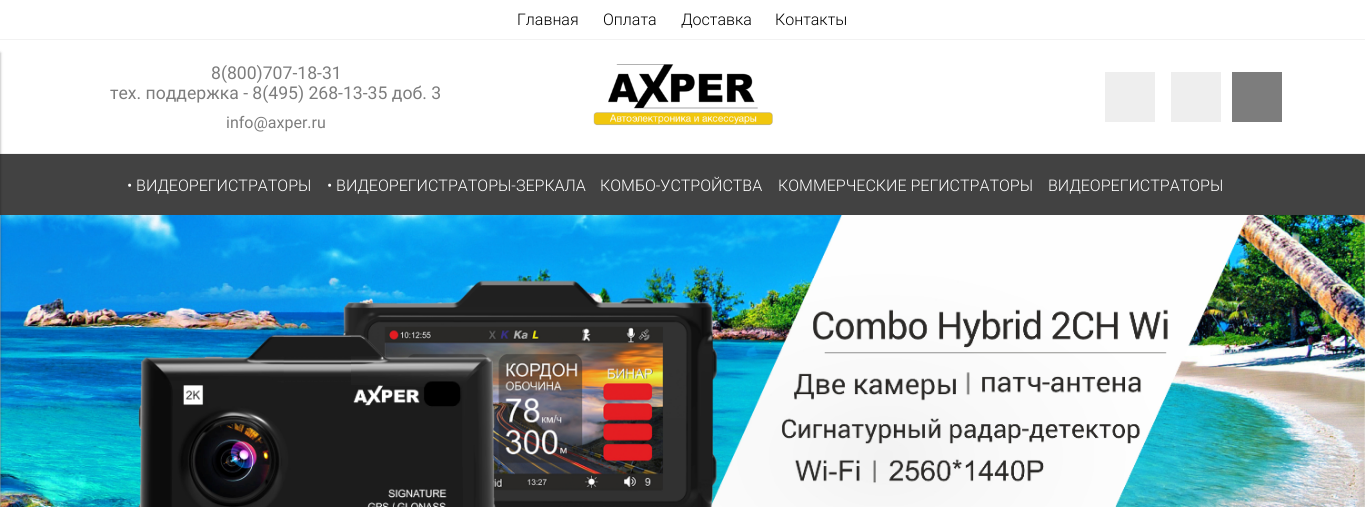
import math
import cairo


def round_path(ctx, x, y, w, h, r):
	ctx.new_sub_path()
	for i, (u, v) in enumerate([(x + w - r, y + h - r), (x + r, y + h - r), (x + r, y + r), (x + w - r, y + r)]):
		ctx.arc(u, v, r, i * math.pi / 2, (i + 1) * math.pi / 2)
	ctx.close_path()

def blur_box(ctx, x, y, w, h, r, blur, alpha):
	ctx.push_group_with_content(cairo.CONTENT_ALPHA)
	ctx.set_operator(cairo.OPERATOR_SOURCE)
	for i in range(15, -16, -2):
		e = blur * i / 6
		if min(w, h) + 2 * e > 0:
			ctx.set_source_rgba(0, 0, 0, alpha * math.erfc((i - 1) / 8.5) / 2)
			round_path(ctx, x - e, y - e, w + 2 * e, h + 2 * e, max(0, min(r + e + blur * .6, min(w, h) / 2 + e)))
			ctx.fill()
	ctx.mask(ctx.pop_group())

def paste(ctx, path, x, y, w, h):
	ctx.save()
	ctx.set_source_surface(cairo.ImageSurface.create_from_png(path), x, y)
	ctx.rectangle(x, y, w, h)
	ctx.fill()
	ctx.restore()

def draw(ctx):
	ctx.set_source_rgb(1, 1, 1)
	ctx.paint()
	ctx.set_source_rgb(0.949, 0.949, 0.949)
	ctx.rectangle(0, 153, 1365, 1)
	ctx.fill()
	ctx.set_source_rgb(0.259, 0.259, 0.259)
	ctx.rectangle(0, 154, 1365, 61)
	ctx.fill()
	paste(ctx, 'media/2.png', 0, 215, 1365, 292)
	ctx.set_source_rgb(0, 0, 0)
	blur_box(ctx, -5, 53, 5, 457, 0, 1.5, 0.4)
	ctx.set_source_rgb(0.949, 0.949, 0.949)
	ctx.rectangle(0, 39, 1365, 1)
	ctx.fill()
	ctx.select_font_face('Roboto Light')
	ctx.set_font_size(16)
	ctx.set_source_rgb(0, 0, 0)
	for x, y, s in [
		(517, 25, 'Главная'),
		(603, 25, 'Оплата'),
		(681, 25, 'Доставка'),
		(775, 25, 'Контакты'),
	]:
		ctx.move_to(x, y)
		ctx.show_text(s)
	ctx.select_font_face('Roboto')
	ctx.set_font_size(17.6)
	ctx.set_source_rgb(0.49, 0.49, 0.49)
	ctx.move_to(211, 79)
	ctx.show_text('8(800)707-18-31')
	ctx.move_to(110, 99)
	ctx.show_text('тех. поддержка - 8(495) 268-13-35 доб. 3')
	ctx.set_font_size(16)
	ctx.move_to(226, 128)
	ctx.show_text('info@axper.ru')
	paste(ctx, 'media/1.png', 593, 64, 180, 62)
	ctx.set_source_rgb(0.933, 0.933, 0.933)
	ctx.rectangle(1105, 72, 50, 50)
	ctx.rectangle(1171, 72, 50, 50)
	ctx.fill()
	ctx.set_source_rgb(0.49, 0.49, 0.49)
	ctx.rectangle(1232, 72, 50, 50)
	ctx.fill()
	ctx.select_font_face('Roboto Light')
	ctx.set_source_rgb(1, 1, 1)
	for x, y, s in [
		(127, 191, '• ВИДЕОРЕГИСТРАТОРЫ'),
		(327, 191, '• ВИДЕОРЕГИСТРАТОРЫ-ЗЕРКАЛА'),
		(600, 191, 'КОМБО-УСТРОЙСТВА'),
		(778, 191, 'КОММЕРЧЕСКИЕ РЕГИСТРАТОРЫ'),
		(1048, 191, 'ВИДЕОРЕГИСТРАТОРЫ'),
	]:
		ctx.move_to(x, y)
		ctx.show_text(s)


surface = cairo.ImageSurface(cairo.FORMAT_RGB24, 1365, 507)
ctx = cairo.Context(surface)
options = cairo.FontOptions()
options.set_hint_metrics(cairo.HINT_METRICS_OFF)
options.set_hint_style(cairo.HINT_STYLE_NONE)
ctx.set_font_options(options)
ctx.set_miter_limit(4)
draw(ctx)
surface.write_to_png('image.png')
